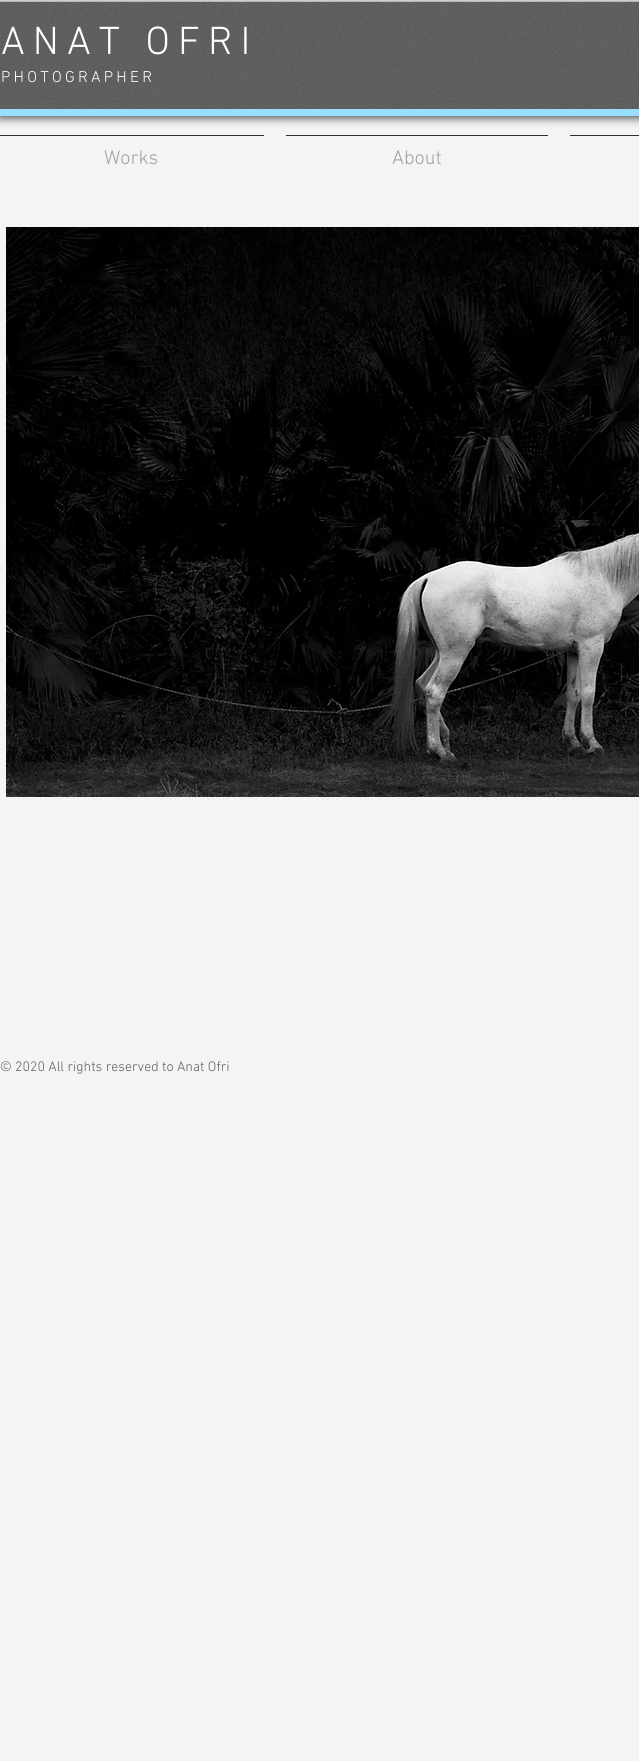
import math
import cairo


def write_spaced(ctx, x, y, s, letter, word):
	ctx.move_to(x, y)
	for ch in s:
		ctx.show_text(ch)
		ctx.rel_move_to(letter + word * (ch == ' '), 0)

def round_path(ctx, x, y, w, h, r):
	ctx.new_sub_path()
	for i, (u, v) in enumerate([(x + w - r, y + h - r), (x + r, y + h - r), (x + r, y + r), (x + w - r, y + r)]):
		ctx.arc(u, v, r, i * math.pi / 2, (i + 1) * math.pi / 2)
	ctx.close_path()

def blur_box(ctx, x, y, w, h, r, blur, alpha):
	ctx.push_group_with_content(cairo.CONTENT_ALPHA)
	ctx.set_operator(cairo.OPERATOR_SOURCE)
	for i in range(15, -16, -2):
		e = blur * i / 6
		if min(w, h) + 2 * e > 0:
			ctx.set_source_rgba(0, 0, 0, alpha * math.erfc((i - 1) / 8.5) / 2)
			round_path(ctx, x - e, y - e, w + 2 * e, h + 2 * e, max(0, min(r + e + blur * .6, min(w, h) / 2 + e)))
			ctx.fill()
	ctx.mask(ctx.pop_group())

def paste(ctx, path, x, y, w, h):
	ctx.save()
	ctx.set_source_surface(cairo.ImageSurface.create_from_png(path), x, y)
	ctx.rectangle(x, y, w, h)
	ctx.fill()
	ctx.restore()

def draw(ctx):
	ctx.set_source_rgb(0.957, 0.957, 0.957)
	ctx.paint()
	ctx.set_source_rgb(0.38, 0.376, 0.376)
	ctx.rectangle(0, 2, 639, 107)
	ctx.fill()
	ctx.set_source_rgb(0.749, 0.745, 0.745)
	ctx.rectangle(0, 1, 639, 1)
	ctx.fill()
	ctx.save()
	ctx.set_fill_rule(cairo.FILL_RULE_EVEN_ODD)
	ctx.new_path()
	ctx.move_to(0, 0)
	ctx.line_to(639, 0)
	ctx.line_to(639, 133)
	ctx.line_to(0, 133)
	ctx.close_path()
	ctx.move_to(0, 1)
	ctx.line_to(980, 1)
	ctx.line_to(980, 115)
	ctx.line_to(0, 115)
	ctx.close_path()
	ctx.clip()
	ctx.set_source_rgb(0, 0, 0)
	blur_box(ctx, 0, 4, 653, 114, 0, 4.5, 0.7)
	ctx.restore()
	paste(ctx, 'media/1.png', 0, 1, 639, 108)
	ctx.select_font_face('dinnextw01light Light')
	ctx.set_font_size(40)
	ctx.set_source_rgb(1, 1, 1)
	write_spaced(ctx, 1, 54, 'ANAT OFRI', 8, 0)
	ctx.set_font_size(16)
	write_spaced(ctx, 1, 82, 'PHOTOGRAPHER', 3.25, 0)
	ctx.set_source_rgb(0.592, 0.871, 1)
	ctx.rectangle(0, 109, 639, 7)
	ctx.fill()
	ctx.set_source_rgb(0.184, 0.18, 0.18)
	ctx.rectangle(570, 135, 69, 1)
	ctx.rectangle(0, 135, 264, 1)
	ctx.fill()
	ctx.set_font_size(20)
	ctx.set_source_rgb(0.627, 0.627, 0.624)
	ctx.move_to(104, 164)
	ctx.show_text('Works')
	ctx.set_source_rgb(0.184, 0.18, 0.18)
	ctx.rectangle(286, 135, 262, 1)
	ctx.fill()
	ctx.set_source_rgb(0.627, 0.627, 0.624)
	ctx.move_to(392, 164)
	ctx.show_text('About')
	paste(ctx, 'media/2.png', 6, 227, 633, 570)
	ctx.set_font_size(14)
	ctx.set_source_rgb(0.376, 0.369, 0.369)
	ctx.move_to(0, 1071)
	ctx.show_text('© 2020 All rights reserved to Anat Ofri')


surface = cairo.ImageSurface(cairo.FORMAT_RGB24, 639, 1761)
ctx = cairo.Context(surface)
options = cairo.FontOptions()
options.set_hint_metrics(cairo.HINT_METRICS_OFF)
options.set_hint_style(cairo.HINT_STYLE_NONE)
ctx.set_font_options(options)
ctx.set_miter_limit(4)
draw(ctx)
surface.write_to_png('image.png')
